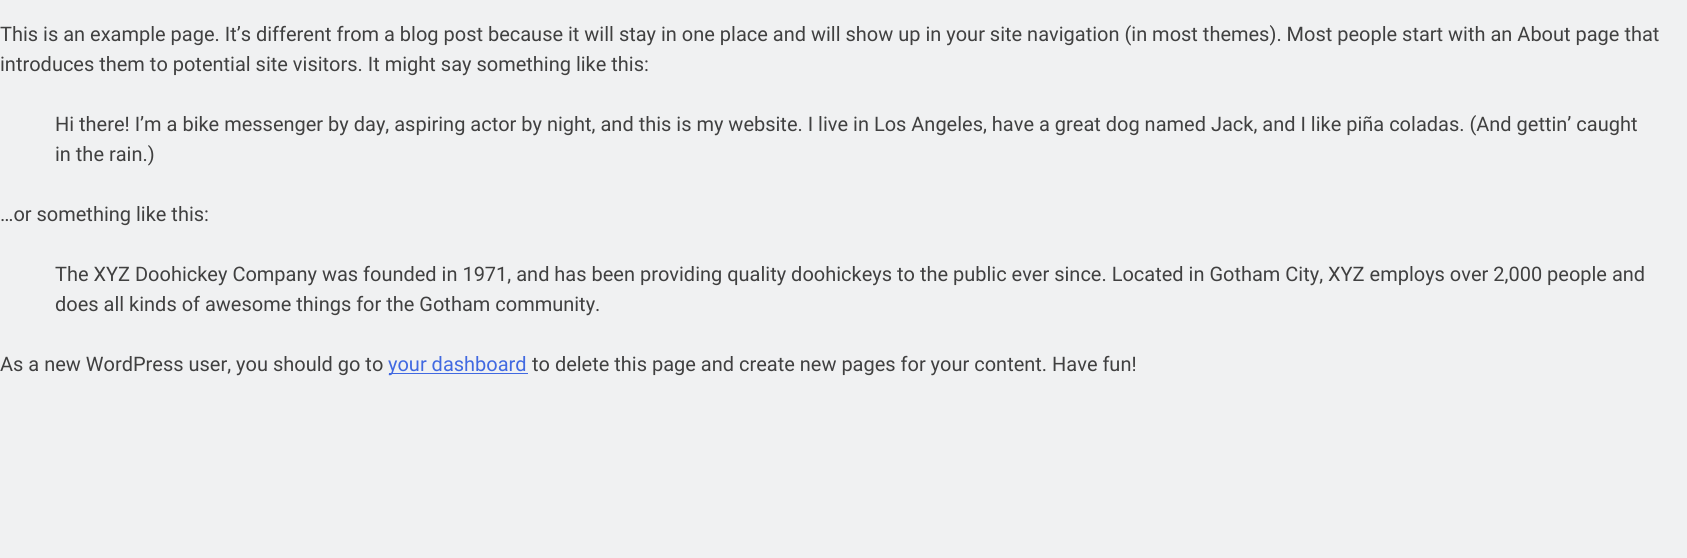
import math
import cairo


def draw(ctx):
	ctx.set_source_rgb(0.941, 0.945, 0.949)
	ctx.paint()
	ctx.select_font_face('Roboto')
	ctx.set_font_size(20)
	ctx.set_source_rgb(0.251, 0.251, 0.251)
	for x, y, s in [
		(0, 41, 'This is an example page. It’s different from a blog post because it will stay in one place and will show up in your site navigation (in most themes). Most people start with an About page that'),
		(0, 71, 'introduces them to potential site visitors. It might say something like this:'),
		(55, 131, 'Hi there! I’m a bike messenger by day, aspiring actor by night, and this is my website. I live in Los Angeles, have a great dog named Jack, and I like piña coladas. (And gettin’ caught'),
		(55, 161, 'in the rain.)'),
		(0, 221, '…or something like this:'),
		(55, 281, 'The XYZ Doohickey Company was founded in 1971, and has been providing quality doohickeys to the public ever since. Located in Gotham City, XYZ employs over 2,000 people and'),
		(55, 311, 'does all kinds of awesome things for the Gotham community.'),
		(0, 371, 'As a new WordPress user, you should go to'),
	]:
		ctx.move_to(x, y)
		ctx.show_text(s)
	ctx.set_source_rgb(0.255, 0.412, 0.882)
	ctx.rectangle(389, 373, 139, 1)
	ctx.fill()
	ctx.move_to(388, 371)
	ctx.show_text('your dashboard')
	ctx.set_source_rgb(0.251, 0.251, 0.251)
	ctx.move_to(532, 371)
	ctx.show_text('to delete this page and create new pages for your content. Have fun!')


surface = cairo.ImageSurface(cairo.FORMAT_RGB24, 1687, 558)
ctx = cairo.Context(surface)
options = cairo.FontOptions()
options.set_hint_metrics(cairo.HINT_METRICS_OFF)
options.set_hint_style(cairo.HINT_STYLE_NONE)
ctx.set_font_options(options)
ctx.set_miter_limit(4)
draw(ctx)
surface.write_to_png('image.png')
